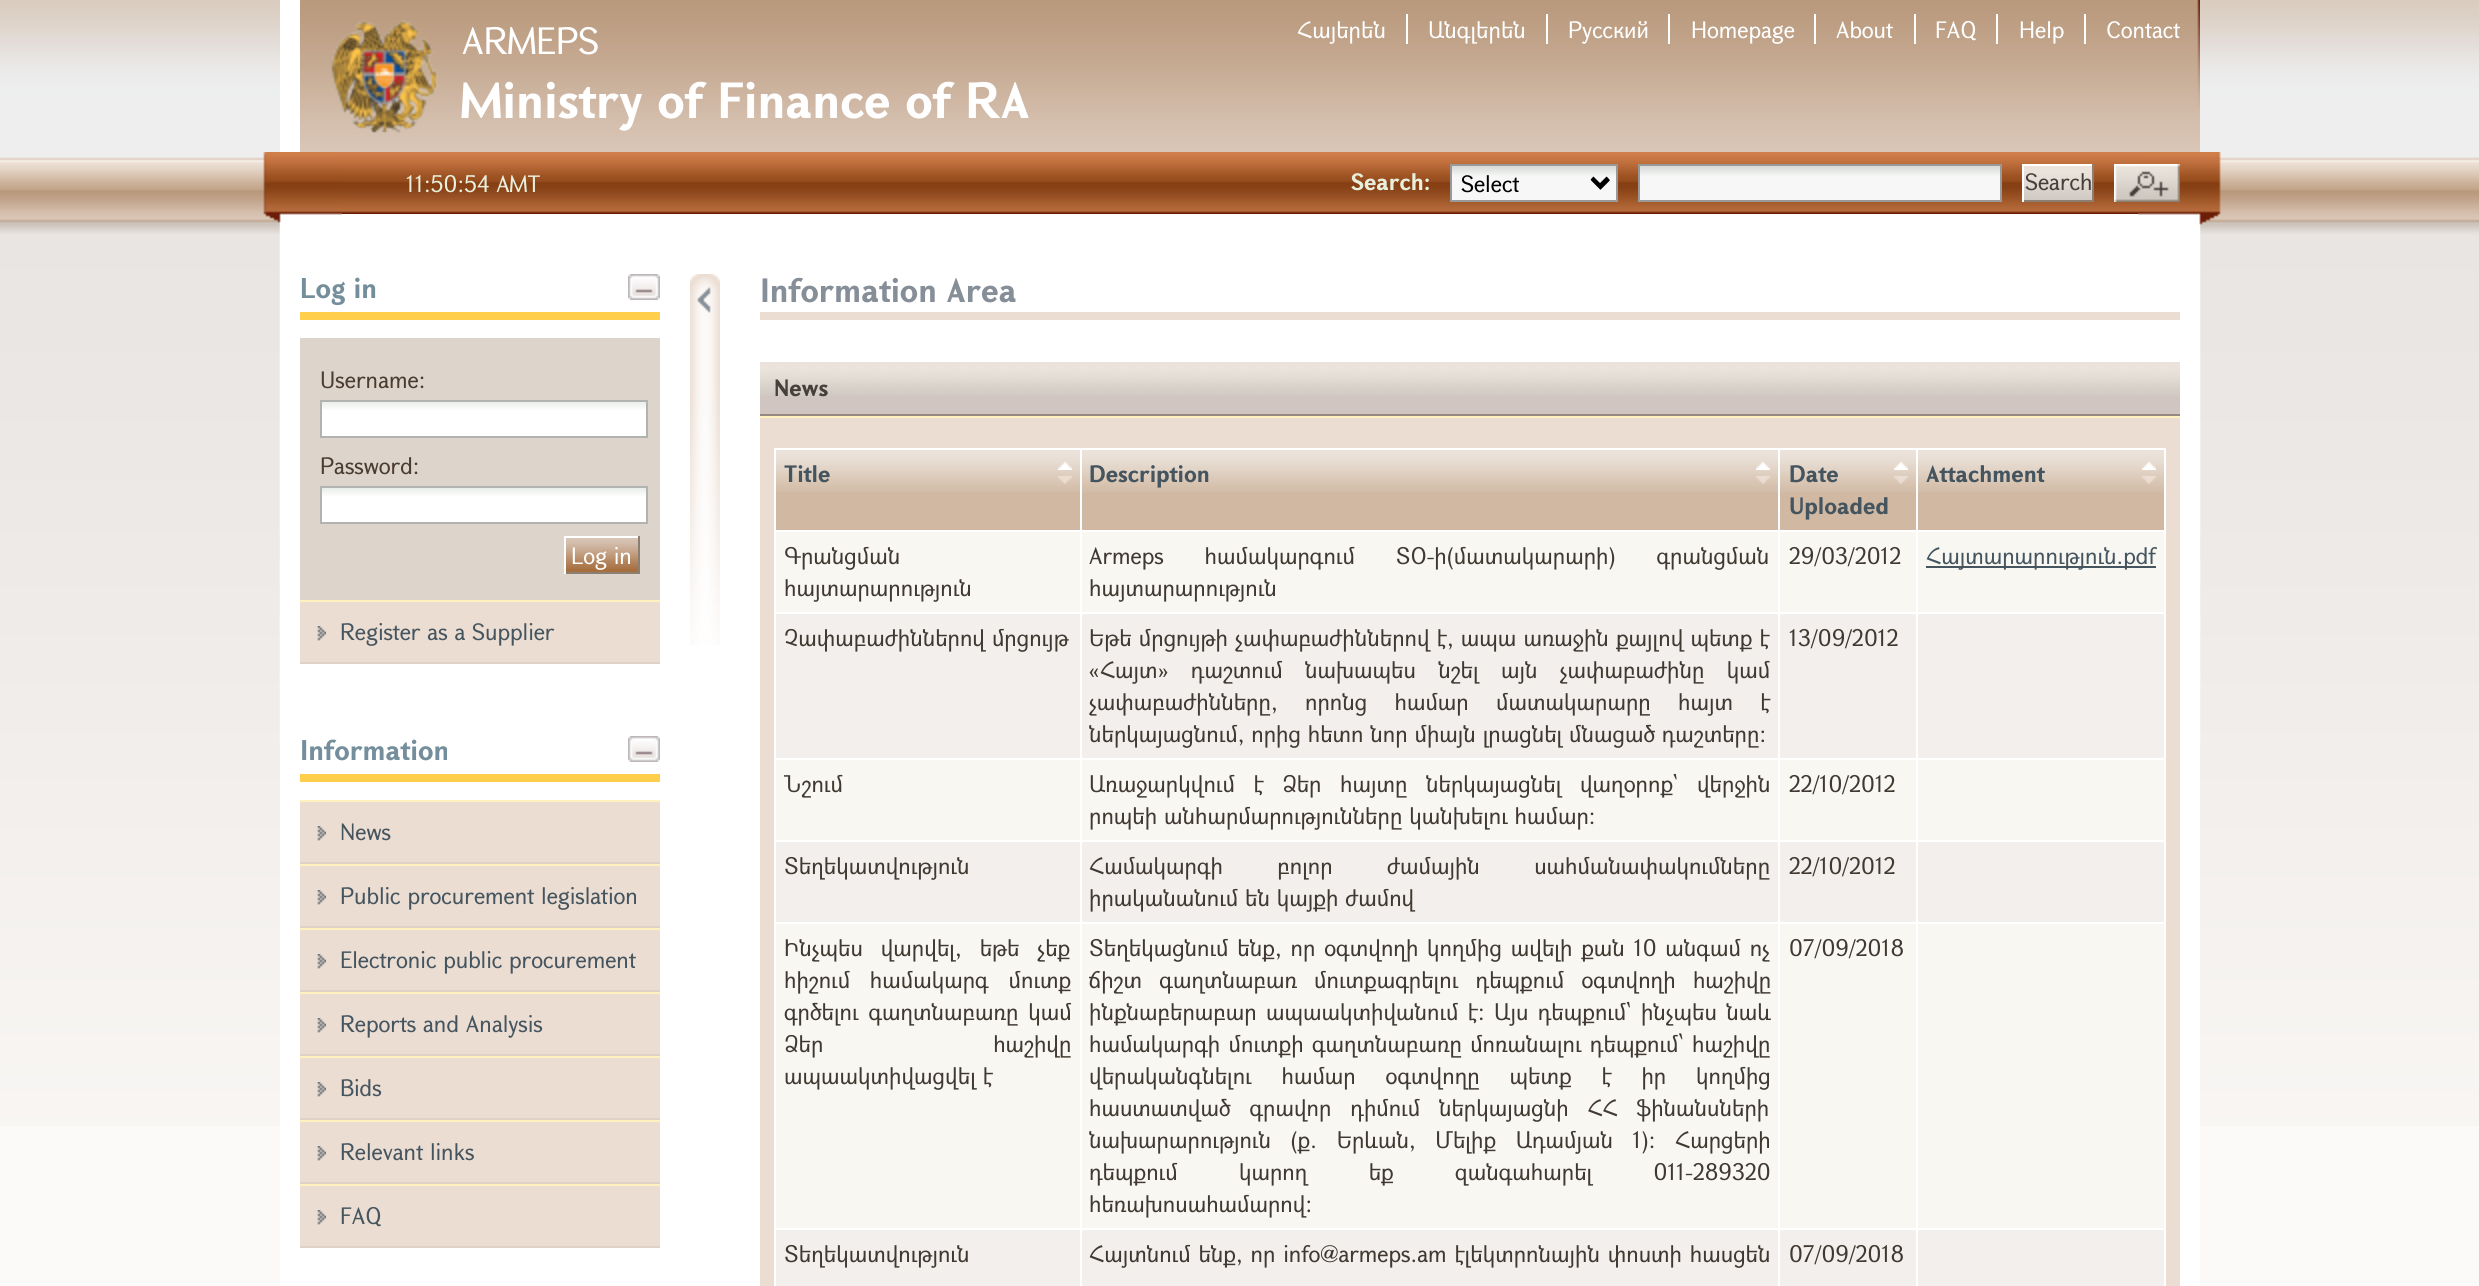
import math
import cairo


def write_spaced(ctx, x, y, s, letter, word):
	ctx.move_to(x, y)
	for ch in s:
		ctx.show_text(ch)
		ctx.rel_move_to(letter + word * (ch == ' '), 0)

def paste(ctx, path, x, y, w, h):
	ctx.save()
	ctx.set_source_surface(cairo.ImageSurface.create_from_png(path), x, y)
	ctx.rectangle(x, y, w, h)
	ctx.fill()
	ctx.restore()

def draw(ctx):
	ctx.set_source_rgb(0.988, 0.98, 0.973)
	ctx.paint()
	paste(ctx, 'media/1.png', 0, 0, 2479, 1126)
	ctx.set_source_rgb(1, 1, 1)
	ctx.rectangle(280, 0, 1920, 1286)
	ctx.fill()
	paste(ctx, 'media/2.png', 300, 0, 1900, 152)
	paste(ctx, 'media/3.png', 331, 19, 107, 115)
	ctx.select_font_face('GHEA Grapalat')
	ctx.set_font_size(36)
	ctx.move_to(462, 54)
	ctx.show_text('ARMEPS')
	ctx.select_font_face('GHEA Grapalat', cairo.FONT_SLANT_NORMAL, cairo.FONT_WEIGHT_BOLD)
	ctx.set_font_size(48)
	ctx.move_to(460, 118)
	ctx.show_text('Ministry of Finance of RA')
	paste(ctx, 'media/4.png', 2197, 0, 3, 108)
	ctx.rectangle(1406, 14, 2, 30)
	ctx.fill()
	ctx.select_font_face('GHEA Grapalat')
	ctx.set_font_size(22.4)
	ctx.move_to(1297, 38)
	ctx.show_text('Հայերեն')
	ctx.rectangle(1546, 14, 2, 30)
	ctx.fill()
	ctx.move_to(1428, 38)
	ctx.show_text('Անգլերեն')
	ctx.rectangle(1668, 14, 2, 30)
	ctx.fill()
	ctx.move_to(1568, 38)
	ctx.show_text('Русский')
	ctx.rectangle(1814, 14, 2, 30)
	ctx.fill()
	ctx.move_to(1691, 38)
	ctx.show_text('Homepage')
	ctx.rectangle(1914, 14, 2, 30)
	ctx.fill()
	ctx.move_to(1836, 38)
	ctx.show_text('About')
	ctx.rectangle(1996, 14, 2, 30)
	ctx.fill()
	ctx.move_to(1935, 38)
	ctx.show_text('FAQ')
	ctx.rectangle(2084, 14, 2, 30)
	ctx.fill()
	ctx.move_to(2019, 38)
	ctx.show_text('Help')
	ctx.move_to(2106, 38)
	ctx.show_text('Contact')
	paste(ctx, 'media/5.png', 342, 152, 1796, 62)
	paste(ctx, 'media/6.png', 263, 152, 79, 594)
	ctx.set_source_rgb(0.91, 0.941, 0.867)
	ctx.move_to(406, 192)
	ctx.show_text('11:50:54 AMT')
	paste(ctx, 'media/7.png', 2138, 152, 83, 594)
	ctx.select_font_face('GHEA Grapalat', cairo.FONT_SLANT_NORMAL, cairo.FONT_WEIGHT_BOLD)
	ctx.move_to(1351, 190)
	ctx.show_text('Search:')
	paste(ctx, 'media/8.png', 1452, 166, 164, 34)
	ctx.rectangle(1451, 165, 166, 36)
	ctx.set_source_rgb(0.6, 0.6, 0.6)
	ctx.stroke()
	ctx.new_path()
	ctx.move_to(1592.5, 179)
	ctx.line_to(1600.5, 187)
	ctx.line_to(1608.5, 179)
	ctx.set_source_rgb(0, 0, 0)
	ctx.set_line_width(4)
	ctx.stroke()
	ctx.select_font_face('GHEA Grapalat')
	ctx.move_to(1461, 192)
	ctx.show_text('Select')
	paste(ctx, 'media/9.png', 1640, 166, 360, 34)
	ctx.rectangle(1639, 165, 362, 36)
	ctx.set_source_rgb(0.6, 0.6, 0.6)
	ctx.set_line_width(2)
	ctx.stroke()
	paste(ctx, 'media/10.png', 2024, 166, 68, 34)
	ctx.set_source_rgb(1, 1, 1)
	ctx.rectangle(2022, 164, 72, 2)
	ctx.fill()
	ctx.set_source_rgb(0.545, 0.498, 0.443)
	ctx.rectangle(2092, 164, 2, 38)
	ctx.rectangle(2022, 200, 72, 2)
	ctx.fill()
	ctx.set_source_rgb(1, 1, 1)
	ctx.rectangle(2022, 164, 2, 38)
	ctx.fill()
	ctx.set_source_rgb(0.271, 0.251, 0.227)
	ctx.move_to(2025, 190)
	ctx.show_text('Search')
	paste(ctx, 'media/11.png', 2114, 164, 66, 38)
	ctx.set_source_rgb(1, 0.808, 0.29)
	ctx.rectangle(300, 312, 360, 8)
	ctx.fill()
	ctx.select_font_face('GHEA Grapalat', cairo.FONT_SLANT_NORMAL, cairo.FONT_WEIGHT_BOLD)
	ctx.set_font_size(27)
	ctx.set_source_rgb(0.455, 0.557, 0.612)
	ctx.move_to(300, 298)
	ctx.show_text('Log in')
	paste(ctx, 'media/12.png', 628, 274, 32, 26)
	ctx.set_source_rgb(0.867, 0.831, 0.796)
	ctx.rectangle(300, 338, 360, 262)
	ctx.fill()
	ctx.select_font_face('GHEA Grapalat')
	ctx.set_font_size(22.4)
	ctx.set_source_rgb(0.294, 0.235, 0.188)
	ctx.move_to(320, 388)
	ctx.show_text('Username:')
	ctx.set_source_rgb(1, 1, 1)
	ctx.rectangle(322, 410, 324, 26)
	ctx.fill()
	paste(ctx, 'media/13.png', 322, 402, 324, 8)
	ctx.rectangle(321, 401, 326, 36)
	ctx.set_source_rgb(0.694, 0.702, 0.694)
	ctx.stroke()
	ctx.set_source_rgb(0.294, 0.235, 0.188)
	ctx.move_to(320, 474)
	ctx.show_text('Password:')
	ctx.set_source_rgb(1, 1, 1)
	ctx.rectangle(322, 496, 324, 26)
	ctx.fill()
	paste(ctx, 'media/13.png', 322, 488, 324, 8)
	ctx.rectangle(321, 487, 326, 36)
	ctx.set_source_rgb(0.694, 0.702, 0.694)
	ctx.stroke()
	ctx.set_source_rgb(0.655, 0.431, 0.243)
	ctx.rectangle(566, 569, 72, 3)
	ctx.fill()
	paste(ctx, 'media/14.png', 566, 538, 72, 31)
	ctx.set_source_rgb(1, 1, 1)
	ctx.rectangle(564, 536, 76, 2)
	ctx.fill()
	ctx.set_source_rgb(0.545, 0.498, 0.443)
	ctx.rectangle(638, 536, 2, 38)
	ctx.rectangle(564, 572, 76, 2)
	ctx.fill()
	ctx.set_source_rgb(1, 1, 1)
	ctx.rectangle(564, 536, 2, 38)
	ctx.fill()
	ctx.move_to(571, 564)
	ctx.show_text('Log in')
	ctx.set_source_rgb(0.922, 0.867, 0.824)
	ctx.rectangle(300, 602, 360, 60)
	ctx.fill()
	paste(ctx, 'media/15.png', 317, 626, 9, 15)
	ctx.set_source_rgb(1, 0.949, 0.749)
	ctx.rectangle(300, 600, 360, 2)
	ctx.fill()
	ctx.set_source_rgb(0.875, 0.824, 0.78)
	ctx.rectangle(300, 662, 360, 2)
	ctx.fill()
	ctx.set_source_rgb(0.271, 0.333, 0.373)
	ctx.move_to(340, 640)
	ctx.show_text('Register as a Supplier')
	ctx.set_source_rgb(1, 0.808, 0.29)
	ctx.rectangle(300, 774, 360, 8)
	ctx.fill()
	ctx.select_font_face('GHEA Grapalat', cairo.FONT_SLANT_NORMAL, cairo.FONT_WEIGHT_BOLD)
	ctx.set_font_size(27)
	ctx.set_source_rgb(0.455, 0.557, 0.612)
	ctx.move_to(300, 760)
	ctx.show_text('Information')
	paste(ctx, 'media/12.png', 628, 736, 32, 26)
	ctx.set_source_rgb(0.922, 0.867, 0.824)
	ctx.rectangle(300, 802, 360, 60)
	ctx.fill()
	paste(ctx, 'media/15.png', 317, 826, 9, 15)
	ctx.set_source_rgb(1, 0.949, 0.749)
	ctx.rectangle(300, 800, 360, 2)
	ctx.fill()
	ctx.set_source_rgb(0.875, 0.824, 0.78)
	ctx.rectangle(300, 862, 360, 2)
	ctx.fill()
	ctx.select_font_face('GHEA Grapalat')
	ctx.set_font_size(22.4)
	ctx.set_source_rgb(0.271, 0.333, 0.373)
	ctx.move_to(340, 840)
	ctx.show_text('News')
	ctx.set_source_rgb(0.922, 0.867, 0.824)
	ctx.rectangle(300, 866, 360, 60)
	ctx.fill()
	paste(ctx, 'media/15.png', 317, 890, 9, 15)
	ctx.set_source_rgb(1, 0.949, 0.749)
	ctx.rectangle(300, 864, 360, 2)
	ctx.fill()
	ctx.set_source_rgb(0.875, 0.824, 0.78)
	ctx.rectangle(300, 926, 360, 2)
	ctx.fill()
	ctx.set_source_rgb(0.271, 0.333, 0.373)
	ctx.move_to(340, 904)
	ctx.show_text('Public procurement legislation')
	ctx.set_source_rgb(0.922, 0.867, 0.824)
	ctx.rectangle(300, 930, 360, 60)
	ctx.fill()
	paste(ctx, 'media/15.png', 317, 954, 9, 15)
	ctx.set_source_rgb(1, 0.949, 0.749)
	ctx.rectangle(300, 928, 360, 2)
	ctx.fill()
	ctx.set_source_rgb(0.875, 0.824, 0.78)
	ctx.rectangle(300, 990, 360, 2)
	ctx.fill()
	ctx.set_source_rgb(0.271, 0.333, 0.373)
	ctx.move_to(340, 968)
	ctx.show_text('Electronic public procurement')
	ctx.set_source_rgb(0.922, 0.867, 0.824)
	ctx.rectangle(300, 994, 360, 60)
	ctx.fill()
	paste(ctx, 'media/15.png', 317, 1018, 9, 15)
	ctx.set_source_rgb(1, 0.949, 0.749)
	ctx.rectangle(300, 992, 360, 2)
	ctx.fill()
	ctx.set_source_rgb(0.875, 0.824, 0.78)
	ctx.rectangle(300, 1054, 360, 2)
	ctx.fill()
	ctx.set_source_rgb(0.271, 0.333, 0.373)
	ctx.move_to(340, 1032)
	ctx.show_text('Reports and Analysis')
	ctx.set_source_rgb(0.922, 0.867, 0.824)
	ctx.rectangle(300, 1058, 360, 60)
	ctx.fill()
	paste(ctx, 'media/15.png', 317, 1082, 9, 15)
	ctx.set_source_rgb(1, 0.949, 0.749)
	ctx.rectangle(300, 1056, 360, 2)
	ctx.fill()
	ctx.set_source_rgb(0.875, 0.824, 0.78)
	ctx.rectangle(300, 1118, 360, 2)
	ctx.fill()
	ctx.set_source_rgb(0.271, 0.333, 0.373)
	ctx.move_to(340, 1096)
	ctx.show_text('Bids')
	ctx.set_source_rgb(0.922, 0.867, 0.824)
	ctx.rectangle(300, 1122, 360, 60)
	ctx.fill()
	paste(ctx, 'media/15.png', 317, 1146, 9, 15)
	ctx.set_source_rgb(1, 0.949, 0.749)
	ctx.rectangle(300, 1120, 360, 2)
	ctx.fill()
	ctx.set_source_rgb(0.875, 0.824, 0.78)
	ctx.rectangle(300, 1182, 360, 2)
	ctx.fill()
	ctx.set_source_rgb(0.271, 0.333, 0.373)
	ctx.move_to(340, 1160)
	ctx.show_text('Relevant links')
	ctx.set_source_rgb(0.922, 0.867, 0.824)
	ctx.rectangle(300, 1186, 360, 60)
	ctx.fill()
	paste(ctx, 'media/15.png', 317, 1210, 9, 15)
	ctx.set_source_rgb(1, 0.949, 0.749)
	ctx.rectangle(300, 1184, 360, 2)
	ctx.fill()
	ctx.set_source_rgb(0.875, 0.824, 0.78)
	ctx.rectangle(300, 1246, 360, 2)
	ctx.fill()
	ctx.set_source_rgb(0.271, 0.333, 0.373)
	ctx.move_to(340, 1224)
	ctx.show_text('FAQ')
	paste(ctx, 'media/16.png', 690, 274, 30, 371)
	ctx.set_source_rgb(0.922, 0.867, 0.824)
	ctx.rectangle(760, 312, 1420, 8)
	ctx.fill()
	ctx.select_font_face('GHEA Grapalat', cairo.FONT_SLANT_NORMAL, cairo.FONT_WEIGHT_BOLD)
	ctx.set_font_size(32)
	ctx.set_source_rgb(0.525, 0.561, 0.596)
	ctx.move_to(760, 302)
	ctx.show_text('Information Area')
	ctx.set_source_rgb(0.816, 0.773, 0.753)
	ctx.rectangle(760, 396, 1420, 18)
	ctx.fill()
	paste(ctx, 'media/17.png', 760, 362, 1420, 34)
	ctx.set_source_rgb(0.592, 0.537, 0.506)
	ctx.rectangle(760, 414, 1420, 2)
	ctx.fill()
	ctx.set_font_size(22.4)
	ctx.set_source_rgb(0.271, 0.251, 0.227)
	ctx.move_to(774, 396)
	ctx.show_text('News')
	ctx.set_source_rgb(0.922, 0.867, 0.824)
	ctx.rectangle(760, 418, 1420, 868)
	ctx.fill()
	ctx.set_source_rgb(1, 0.949, 0.749)
	ctx.rectangle(760, 416, 1420, 2)
	ctx.fill()
	ctx.set_source_rgb(0.976, 0.965, 0.949)
	ctx.rectangle(776, 532, 1388, 696)
	ctx.fill()
	ctx.set_source_rgb(0.82, 0.722, 0.635)
	ctx.rectangle(776, 492, 304, 38)
	ctx.fill()
	paste(ctx, 'media/18.png', 776, 450, 304, 42)
	ctx.set_source_rgb(1, 1, 1)
	ctx.rectangle(1916, 448, 250, 2)
	ctx.rectangle(1916, 530, 250, 2)
	ctx.rectangle(1916, 612, 250, 2)
	ctx.rectangle(1916, 758, 250, 2)
	ctx.rectangle(1916, 840, 250, 2)
	ctx.rectangle(1916, 922, 250, 2)
	ctx.rectangle(1916, 1228, 250, 2)
	ctx.rectangle(1916, 1228, 2, 58)
	ctx.rectangle(1778, 1228, 140, 2)
	ctx.rectangle(1916, 922, 2, 308)
	ctx.rectangle(1778, 922, 140, 2)
	ctx.rectangle(1916, 840, 2, 84)
	ctx.rectangle(1778, 840, 140, 2)
	ctx.rectangle(1916, 758, 2, 84)
	ctx.rectangle(1778, 758, 140, 2)
	ctx.rectangle(1916, 612, 2, 148)
	ctx.rectangle(1778, 612, 140, 2)
	ctx.rectangle(1916, 530, 2, 84)
	ctx.rectangle(1778, 530, 140, 2)
	ctx.rectangle(1916, 448, 2, 84)
	ctx.rectangle(1778, 448, 140, 2)
	ctx.rectangle(1778, 1228, 2, 58)
	ctx.rectangle(1080, 1228, 700, 2)
	ctx.rectangle(1778, 922, 2, 308)
	ctx.rectangle(1080, 922, 700, 2)
	ctx.rectangle(1778, 840, 2, 84)
	ctx.rectangle(1080, 840, 700, 2)
	ctx.rectangle(1778, 758, 2, 84)
	ctx.rectangle(1080, 758, 700, 2)
	ctx.rectangle(1778, 612, 2, 148)
	ctx.rectangle(1080, 612, 700, 2)
	ctx.rectangle(1778, 530, 2, 84)
	ctx.rectangle(1080, 530, 700, 2)
	ctx.rectangle(1778, 448, 2, 84)
	ctx.rectangle(1080, 448, 700, 2)
	ctx.rectangle(1080, 1228, 2, 58)
	ctx.rectangle(774, 1228, 308, 2)
	ctx.rectangle(1080, 922, 2, 308)
	ctx.rectangle(774, 922, 308, 2)
	ctx.rectangle(1080, 840, 2, 84)
	ctx.rectangle(774, 840, 308, 2)
	ctx.rectangle(1080, 758, 2, 84)
	ctx.rectangle(774, 758, 308, 2)
	ctx.rectangle(1080, 612, 2, 148)
	ctx.rectangle(774, 612, 308, 2)
	ctx.rectangle(1080, 530, 2, 84)
	ctx.rectangle(774, 530, 308, 2)
	ctx.rectangle(1080, 448, 2, 84)
	ctx.rectangle(774, 448, 308, 2)
	ctx.rectangle(774, 1228, 2, 58)
	ctx.rectangle(774, 922, 2, 308)
	ctx.rectangle(774, 840, 2, 84)
	ctx.rectangle(774, 758, 2, 84)
	ctx.rectangle(774, 612, 2, 148)
	ctx.rectangle(774, 530, 2, 84)
	ctx.rectangle(774, 448, 2, 84)
	ctx.fill()
	ctx.set_source_rgb(0.271, 0.333, 0.373)
	ctx.move_to(784, 482)
	ctx.show_text('Title')
	paste(ctx, 'media/19.png', 1058, 462, 14, 8)
	paste(ctx, 'media/20.png', 1058, 476, 14, 8)
	ctx.set_source_rgb(0.82, 0.722, 0.635)
	ctx.rectangle(1082, 492, 696, 38)
	ctx.fill()
	paste(ctx, 'media/21.png', 1082, 450, 696, 42)
	ctx.set_source_rgb(0.271, 0.333, 0.373)
	ctx.move_to(1089, 482)
	ctx.show_text('Description')
	paste(ctx, 'media/19.png', 1756, 462, 14, 8)
	paste(ctx, 'media/20.png', 1756, 476, 14, 8)
	ctx.set_source_rgb(0.82, 0.722, 0.635)
	ctx.rectangle(1780, 492, 136, 38)
	ctx.fill()
	paste(ctx, 'media/22.png', 1780, 450, 136, 42)
	ctx.set_source_rgb(0.271, 0.333, 0.373)
	ctx.move_to(1789, 482)
	ctx.show_text('Date')
	paste(ctx, 'media/19.png', 1894, 462, 14, 8)
	paste(ctx, 'media/20.png', 1894, 476, 14, 8)
	ctx.move_to(1789, 514)
	ctx.show_text('Uploaded')
	ctx.set_source_rgb(0.82, 0.722, 0.635)
	ctx.rectangle(1918, 492, 246, 38)
	ctx.fill()
	paste(ctx, 'media/23.png', 1918, 450, 246, 42)
	ctx.set_source_rgb(1, 1, 1)
	ctx.rectangle(2164, 1228, 2, 58)
	ctx.rectangle(2164, 922, 2, 308)
	ctx.rectangle(2164, 840, 2, 84)
	ctx.rectangle(2164, 758, 2, 84)
	ctx.rectangle(2164, 612, 2, 148)
	ctx.rectangle(2164, 530, 2, 84)
	ctx.rectangle(2164, 448, 2, 84)
	ctx.fill()
	ctx.set_source_rgb(0.271, 0.333, 0.373)
	ctx.move_to(1926, 482)
	ctx.show_text('Attachment')
	paste(ctx, 'media/19.png', 2142, 462, 14, 8)
	paste(ctx, 'media/20.png', 2142, 476, 14, 8)
	ctx.select_font_face('GHEA Grapalat')
	ctx.set_source_rgb(0.251, 0.224, 0.192)
	ctx.move_to(784, 564)
	ctx.show_text('Գրանցման')
	ctx.move_to(784, 596)
	ctx.show_text('հայտարարություն')
	write_spaced(ctx, 1089, 564, 'Armeps համակարգում ՏՕ-ի(մատակարարի) գրանցման', 0, 34)
	ctx.move_to(1089, 596)
	ctx.show_text('հայտարարություն')
	ctx.move_to(1789, 564)
	ctx.show_text('29/03/2012')
	ctx.set_source_rgb(0.271, 0.333, 0.373)
	ctx.rectangle(1926, 566, 230, 2)
	ctx.fill()
	ctx.move_to(1926, 564)
	ctx.show_text('Հայտարարություն.pdf')
	ctx.set_source_rgb(0.953, 0.937, 0.925)
	ctx.rectangle(776, 614, 304, 144)
	ctx.fill()
	ctx.set_source_rgb(0.251, 0.224, 0.192)
	ctx.move_to(784, 646)
	ctx.show_text('Չափաբաժիններով մրցույթ')
	ctx.set_source_rgb(0.953, 0.937, 0.925)
	ctx.rectangle(1082, 614, 696, 144)
	ctx.fill()
	ctx.set_source_rgb(0.251, 0.224, 0.192)
	write_spaced(ctx, 1089, 646, 'Եթե մրցույթի չափաբաժիններով է, ապա առաջին քայլով պետք է', 0, 0.25)
	write_spaced(ctx, 1089, 678, '«Հայտ» դաշտում', 0, 15.5)
	write_spaced(ctx, 1305, 678, 'նախապես նշել այն չափաբաժինը կամ', 0, 15.5)
	write_spaced(ctx, 1089, 710, 'չափաբաժինները, որոնց համար մատակարարը հայտ է', 0, 20.5)
	ctx.move_to(1089, 742)
	ctx.show_text('ներկայացնում, որից հետո նոր միայն լրացնել մնացած դաշտերը:')
	ctx.set_source_rgb(0.953, 0.937, 0.925)
	ctx.rectangle(1780, 614, 136, 144)
	ctx.fill()
	ctx.set_source_rgb(0.251, 0.224, 0.192)
	ctx.move_to(1789, 646)
	ctx.show_text('13/09/2012')
	ctx.set_source_rgb(0.953, 0.937, 0.925)
	ctx.rectangle(1918, 614, 246, 144)
	ctx.fill()
	ctx.set_source_rgb(0.251, 0.224, 0.192)
	ctx.move_to(784, 792)
	ctx.show_text('Նշում')
	write_spaced(ctx, 1089, 792, 'Առաջարկվում է Ձեր հայտը ներկայացնել վաղօրոք` վերջին', 0, 11.75)
	ctx.move_to(1089, 824)
	ctx.show_text('րոպեի անհարմարությունները կանխելու համար:')
	ctx.move_to(1789, 792)
	ctx.show_text('22/10/2012')
	ctx.set_source_rgb(0.953, 0.937, 0.925)
	ctx.rectangle(776, 842, 304, 80)
	ctx.fill()
	ctx.set_source_rgb(0.251, 0.224, 0.192)
	ctx.move_to(784, 874)
	ctx.show_text('Տեղեկատվություն')
	ctx.set_source_rgb(0.953, 0.937, 0.925)
	ctx.rectangle(1082, 842, 696, 80)
	ctx.fill()
	ctx.set_source_rgb(0.251, 0.224, 0.192)
	write_spaced(ctx, 1089, 874, 'Համակարգի բոլոր ժամային սահմանափակումները', 0, 47.5)
	ctx.move_to(1089, 906)
	ctx.show_text('իրականանում են կայքի ժամով')
	ctx.set_source_rgb(0.953, 0.937, 0.925)
	ctx.rectangle(1780, 842, 136, 80)
	ctx.fill()
	ctx.set_source_rgb(0.251, 0.224, 0.192)
	ctx.move_to(1789, 874)
	ctx.show_text('22/10/2012')
	ctx.set_source_rgb(0.953, 0.937, 0.925)
	ctx.rectangle(1918, 842, 246, 80)
	ctx.fill()
	ctx.set_source_rgb(0.251, 0.224, 0.192)
	write_spaced(ctx, 784, 956, 'Ինչպես վարվել, եթե չեք', 0, 11)
	write_spaced(ctx, 784, 988, 'հիշում համակարգ մուտք', 0, 13)
	write_spaced(ctx, 784, 1020, 'գրծելու գաղտնաբառը կամ', 0, 3)
	write_spaced(ctx, 784, 1052, 'Ձեր հաշիվը', 0, 163)
	ctx.move_to(784, 1084)
	ctx.show_text('ապաակտիվացվել է')
	write_spaced(ctx, 1089, 956, 'Տեղեկացնում ենք, որ օգտվողի կողմից ավելի քան 10 անգամ ոչ', 0, 2)
	write_spaced(ctx, 1089, 988, 'ճիշտ գաղտնաբառ մուտքագրելու դեպքում օգտվողի հաշիվը', 0, 10.5)
	write_spaced(ctx, 1089, 1020, 'ինքնաբերաբար ապաակտիվանում է: Այս դեպքում` ինչպես նաև', 0, 2.5)
	write_spaced(ctx, 1089, 1052, 'համակարգի մուտքի գաղտնաբառը մոռանալու դեպքում՝ հաշիվը', 0, 1.5)
	write_spaced(ctx, 1089, 1084, 'վերականգնելու համար օգտվողը պետք է իր կողմից', 0, 23)
	write_spaced(ctx, 1089, 1116, 'հաստատված գրավոր դիմում ներկայացնի ՀՀ ֆինանսների', 0, 12)
	write_spaced(ctx, 1089, 1148, 'նախարարություն (ք. Երևան, Մելիք Ադամյան 1): Հարցերի', 0, 12.75)
	write_spaced(ctx, 1089, 1180, 'դեպքում կարող եք զանգահարել 011-289320', 0, 54.5)
	ctx.move_to(1089, 1212)
	ctx.show_text('հեռախոսահամարով:')
	ctx.move_to(1789, 956)
	ctx.show_text('07/09/2018')
	ctx.set_source_rgb(0.953, 0.937, 0.925)
	ctx.rectangle(776, 1230, 304, 56)
	ctx.fill()
	ctx.set_source_rgb(0.251, 0.224, 0.192)
	ctx.move_to(784, 1262)
	ctx.show_text('Տեղեկատվություն')
	ctx.set_source_rgb(0.953, 0.937, 0.925)
	ctx.rectangle(1082, 1230, 696, 56)
	ctx.fill()
	ctx.set_source_rgb(0.251, 0.224, 0.192)
	write_spaced(ctx, 1089, 1262, 'Հայտնում ենք, որ info@armeps.am էլեկտրոնային փոստի հասցեն', 0, 1)
	ctx.set_source_rgb(0.953, 0.937, 0.925)
	ctx.rectangle(1780, 1230, 136, 56)
	ctx.fill()
	ctx.set_source_rgb(0.251, 0.224, 0.192)
	ctx.move_to(1789, 1262)
	ctx.show_text('07/09/2018')
	ctx.set_source_rgb(0.953, 0.937, 0.925)
	ctx.rectangle(1918, 1230, 246, 56)
	ctx.fill()


surface = cairo.ImageSurface(cairo.FORMAT_RGB24, 2479, 1286)
ctx = cairo.Context(surface)
options = cairo.FontOptions()
options.set_hint_metrics(cairo.HINT_METRICS_OFF)
options.set_hint_style(cairo.HINT_STYLE_NONE)
ctx.set_font_options(options)
ctx.set_miter_limit(4)
draw(ctx)
surface.write_to_png('image.png')
